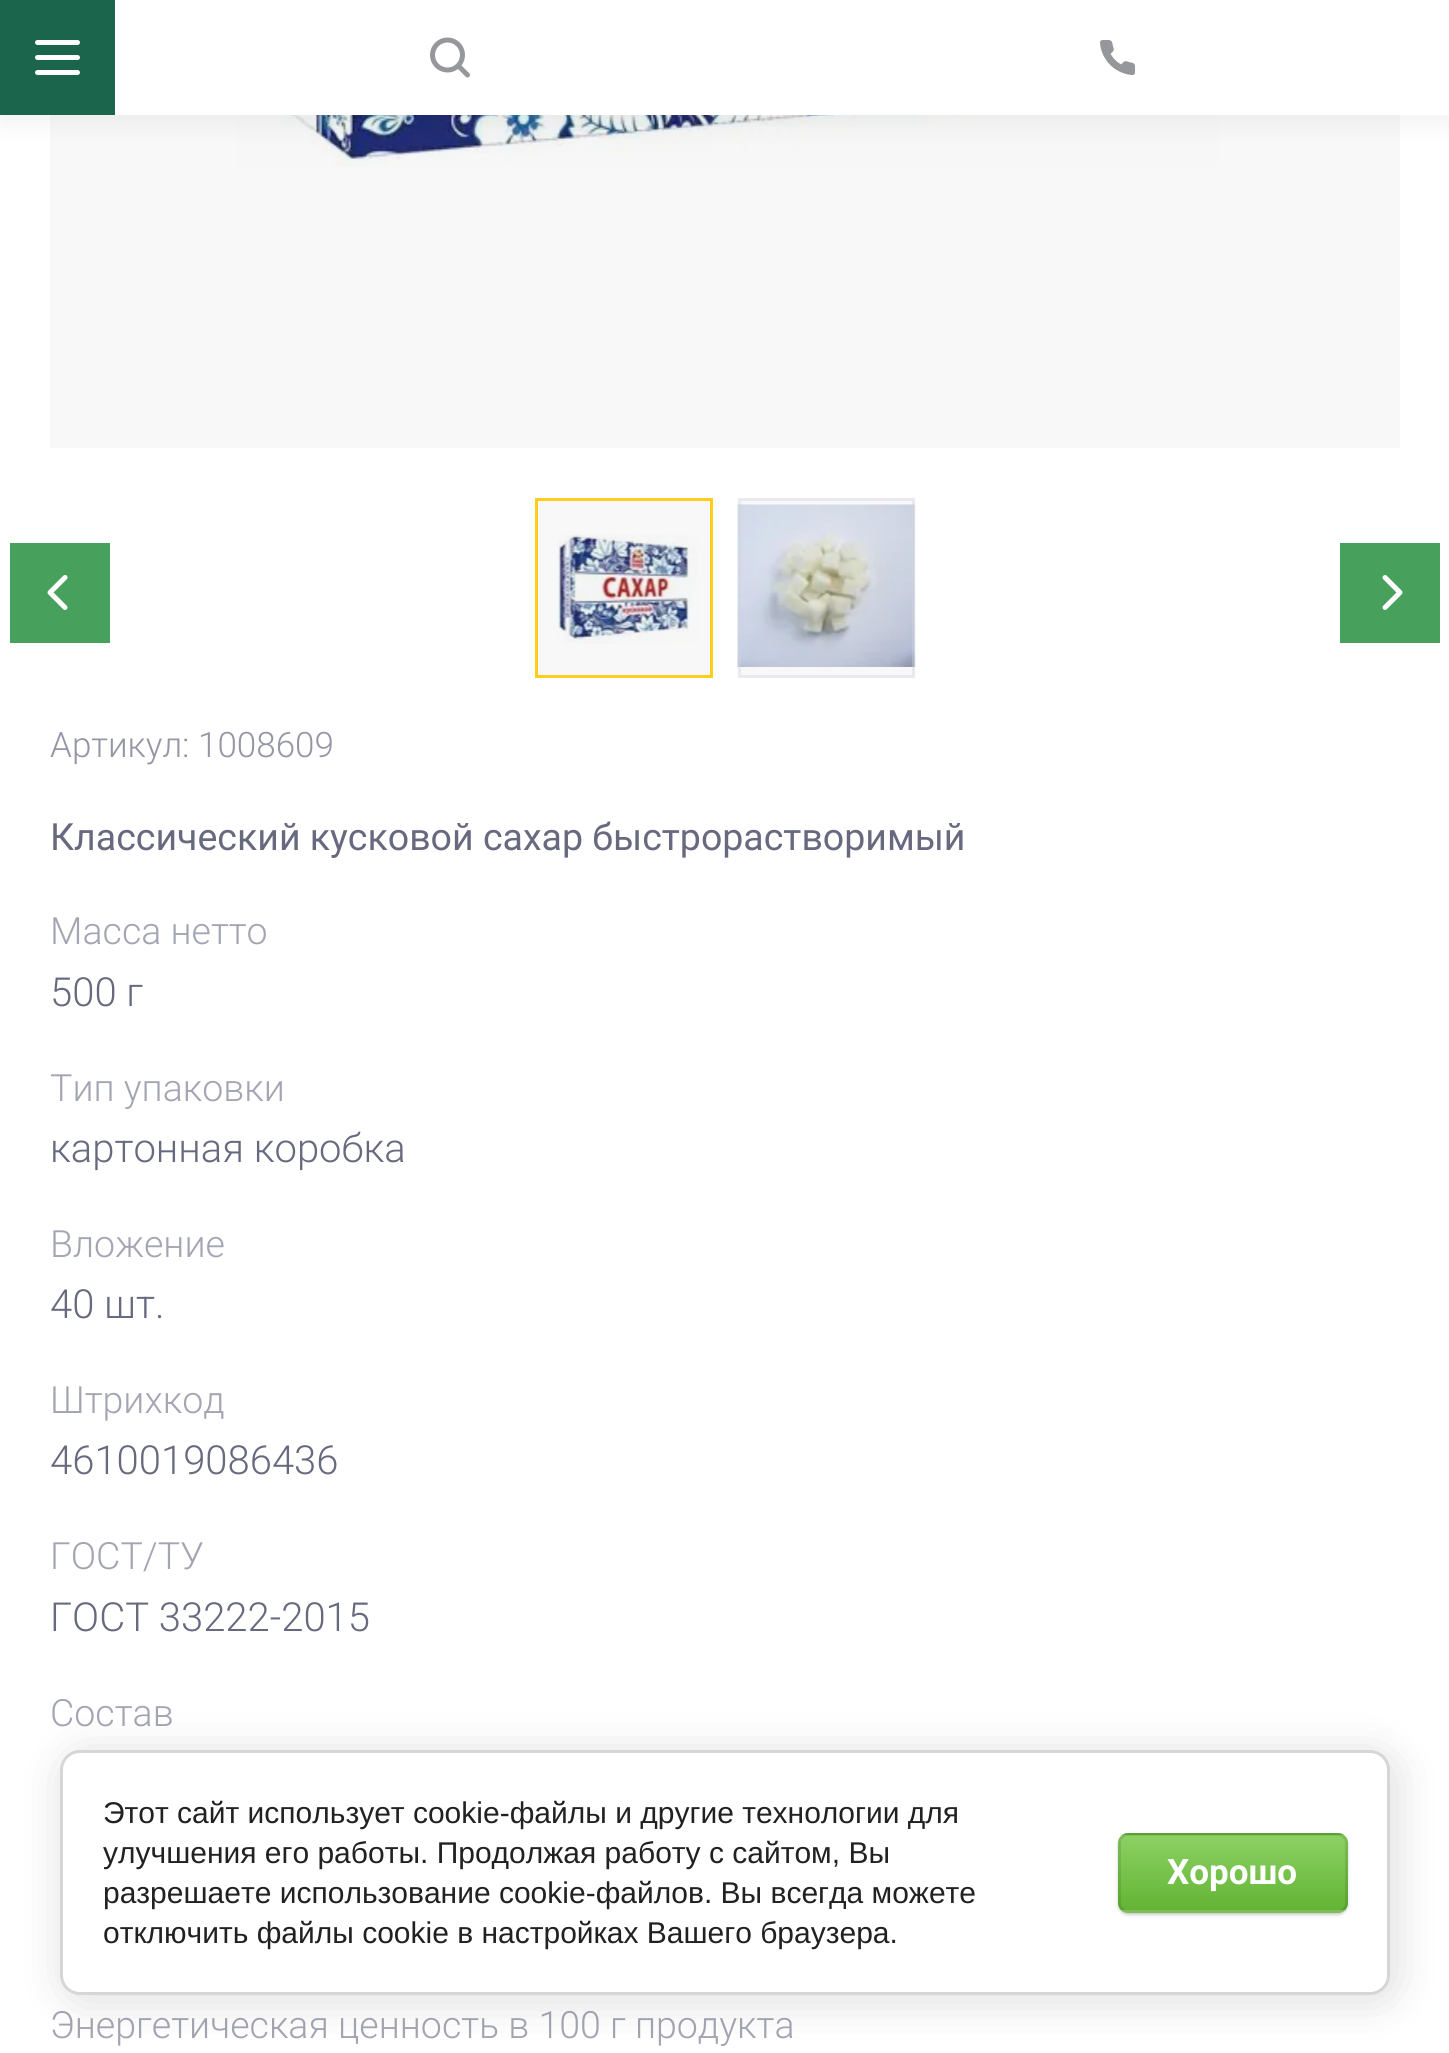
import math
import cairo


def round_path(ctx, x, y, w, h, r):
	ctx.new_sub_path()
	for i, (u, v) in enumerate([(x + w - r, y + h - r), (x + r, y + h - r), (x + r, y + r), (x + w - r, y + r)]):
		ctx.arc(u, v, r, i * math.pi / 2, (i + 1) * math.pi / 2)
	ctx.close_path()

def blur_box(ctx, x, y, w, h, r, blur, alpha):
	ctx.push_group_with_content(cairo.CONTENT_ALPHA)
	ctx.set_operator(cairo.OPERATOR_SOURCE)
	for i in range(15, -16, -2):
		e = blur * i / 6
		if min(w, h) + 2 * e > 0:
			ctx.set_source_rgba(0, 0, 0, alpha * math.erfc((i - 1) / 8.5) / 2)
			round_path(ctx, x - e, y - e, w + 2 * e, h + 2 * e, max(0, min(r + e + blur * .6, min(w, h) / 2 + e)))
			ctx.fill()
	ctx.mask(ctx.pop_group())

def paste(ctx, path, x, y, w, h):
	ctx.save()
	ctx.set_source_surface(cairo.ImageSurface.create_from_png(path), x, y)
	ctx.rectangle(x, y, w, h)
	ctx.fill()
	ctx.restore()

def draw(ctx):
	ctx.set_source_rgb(1, 1, 1)
	ctx.paint()
	ctx.set_source_rgb(0.969, 0.969, 0.969)
	ctx.rectangle(738, 498, 177, 180)
	ctx.rectangle(538, 501, 172, 174)
	ctx.rectangle(50, 115, 1350, 333)
	ctx.fill()
	paste(ctx, 'media/4.png', 237, 115, 981, 52)
	ctx.set_source_rgb(0, 0, 0)
	blur_box(ctx, 0, 10, 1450, 115, 0, 12.5, 0.05)
	ctx.set_source_rgb(1, 1, 1)
	ctx.rectangle(115, 0, 1334, 115)
	ctx.fill()
	ctx.set_source_rgb(0.102, 0.396, 0.294)
	ctx.rectangle(0, 0, 115, 115)
	ctx.fill()
	paste(ctx, 'media/1.png', 35, 40, 45, 35)
	paste(ctx, 'media/2.png', 430, 37, 40, 41)
	paste(ctx, 'media/3.png', 1100, 40, 35, 35)
	ctx.set_source_rgb(0.278, 0.631, 0.365)
	ctx.rectangle(10, 543, 100, 100)
	ctx.fill()
	paste(ctx, 'media/5.png', 47, 575, 21, 35)
	ctx.rectangle(1340, 543, 100, 100)
	ctx.fill()
	paste(ctx, 'media/6.png', 1382, 575, 21, 35)
	paste(ctx, 'media/7.png', 557, 534, 142, 110)
	ctx.rectangle(536.5, 499.5, 175, 177)
	ctx.set_source_rgb(1, 0.804, 0.11)
	ctx.set_line_width(3)
	ctx.stroke()
	paste(ctx, 'media/8.png', 737, 504, 179, 163)
	ctx.rectangle(739.5, 499.5, 174, 177)
	ctx.set_source_rgba(0.824, 0.827, 0.878, 0.4)
	ctx.stroke()
	ctx.select_font_face('Roboto Light')
	ctx.set_font_size(35)
	ctx.set_source_rgb(0.584, 0.588, 0.647)
	ctx.move_to(50, 757)
	ctx.show_text('Артикул: 1008609')
	ctx.select_font_face('Roboto')
	ctx.set_font_size(37.5)
	ctx.set_source_rgb(0.404, 0.412, 0.494)
	ctx.move_to(50, 850)
	ctx.show_text('Классический кусковой сахар быстрорастворимый')
	ctx.select_font_face('Roboto Light')
	ctx.set_source_rgb(0.643, 0.647, 0.698)
	ctx.move_to(50, 944)
	ctx.show_text('Масса нетто')
	ctx.set_font_size(40)
	ctx.set_source_rgb(0.404, 0.412, 0.494)
	ctx.move_to(50, 1006)
	ctx.show_text('500 г')
	ctx.set_font_size(37.5)
	ctx.set_source_rgb(0.643, 0.647, 0.698)
	ctx.move_to(50, 1101)
	ctx.show_text('Тип упаковки')
	ctx.set_font_size(40)
	ctx.set_source_rgb(0.404, 0.412, 0.494)
	ctx.move_to(50, 1162)
	ctx.show_text('картонная коробка')
	ctx.set_font_size(37.5)
	ctx.set_source_rgb(0.643, 0.647, 0.698)
	ctx.move_to(50, 1257)
	ctx.show_text('Вложение')
	ctx.set_font_size(40)
	ctx.set_source_rgb(0.404, 0.412, 0.494)
	ctx.move_to(50, 1318)
	ctx.show_text('40 шт.')
	ctx.set_font_size(37.5)
	ctx.set_source_rgb(0.643, 0.647, 0.698)
	ctx.move_to(50, 1413)
	ctx.show_text('Штрихкод')
	ctx.set_font_size(40)
	ctx.set_source_rgb(0.404, 0.412, 0.494)
	ctx.move_to(50, 1474)
	ctx.show_text('4610019086436')
	ctx.set_font_size(37.5)
	ctx.set_source_rgb(0.643, 0.647, 0.698)
	ctx.move_to(50, 1569)
	ctx.show_text('ГОСТ/ТУ')
	ctx.set_font_size(40)
	ctx.set_source_rgb(0.404, 0.412, 0.494)
	ctx.move_to(50, 1631)
	ctx.show_text('ГОСТ 33222-2015')
	ctx.set_font_size(37.5)
	ctx.set_source_rgb(0.643, 0.647, 0.698)
	ctx.move_to(50, 1726)
	ctx.show_text('Состав')
	ctx.move_to(50, 2038)
	ctx.show_text('Энергетическая ценность в 100 г продукта')
	ctx.set_source_rgb(0, 0, 0)
	blur_box(ctx, 65, 1755, 1330, 245, 20, 22.5, 0.14)
	ctx.set_source_rgb(1, 1, 1)
	round_path(ctx, 61.5, 1751.5, 1327, 242, 18.5)
	ctx.fill_preserve()
	ctx.set_source_rgb(0.839, 0.839, 0.839)
	ctx.stroke()
	ctx.select_font_face('Liberation Sans')
	ctx.set_font_size(30)
	ctx.set_source_rgb(0.129, 0.129, 0.129)
	for x, y, s in [
		(103, 1823, 'Этот сайт использует cookie-файлы и другие технологии для'),
		(103, 1863, 'улучшения его работы. Продолжая работу с сайтом, Вы'),
		(103, 1903, 'разрешаете использование cookie-файлов. Вы всегда можете'),
		(103, 1943, 'отключить файлы cookie в настройках Вашего браузера.'),
	]:
		ctx.move_to(x, y)
		ctx.show_text(s)
	ctx.set_source_rgb(0, 0, 0)
	blur_box(ctx, 1118, 1835, 230, 80, 10, 1.5, 0.2)
	ctx.save()
	round_path(ctx, 1118, 1833, 230, 80, 10)
	ctx.clip()
	gradient = cairo.LinearGradient(1233, 1760, 1233, 1835)
	gradient.add_color_stop_rgba(0, 0.549, 0.82, 0.392, 1)
	gradient.add_color_stop_rgba(1, 0.388, 0.706, 0.208, 1)
	ctx.set_source(gradient)
	ctx.rectangle(1118, 1833, 230, 2)
	ctx.fill()
	gradient = cairo.LinearGradient(1233, 1835, 1233, 1910)
	gradient.add_color_stop_rgba(0, 0.549, 0.82, 0.392, 1)
	gradient.add_color_stop_rgba(1, 0.388, 0.706, 0.208, 1)
	ctx.set_source(gradient)
	ctx.rectangle(1118, 1835, 230, 75)
	ctx.fill()
	gradient = cairo.LinearGradient(1233, 1910, 1233, 1985)
	gradient.add_color_stop_rgba(0, 0.549, 0.82, 0.392, 1)
	gradient.add_color_stop_rgba(1, 0.388, 0.706, 0.208, 1)
	ctx.set_source(gradient)
	ctx.rectangle(1118, 1910, 230, 3)
	ctx.fill()
	ctx.restore()
	round_path(ctx, 1119.5, 1834.5, 227, 77, 8.5)
	ctx.set_source_rgba(0, 0, 0, 0.1)
	ctx.stroke()
	ctx.select_font_face('Roboto', cairo.FONT_SLANT_NORMAL, cairo.FONT_WEIGHT_BOLD)
	ctx.set_font_size(35)
	ctx.set_source_rgb(1, 1, 1)
	ctx.move_to(1167, 1884)
	ctx.show_text('Хорошо')


surface = cairo.ImageSurface(cairo.FORMAT_RGB24, 1449, 2053)
ctx = cairo.Context(surface)
options = cairo.FontOptions()
options.set_hint_metrics(cairo.HINT_METRICS_OFF)
options.set_hint_style(cairo.HINT_STYLE_NONE)
ctx.set_font_options(options)
ctx.set_miter_limit(4)
draw(ctx)
surface.write_to_png('image.png')
